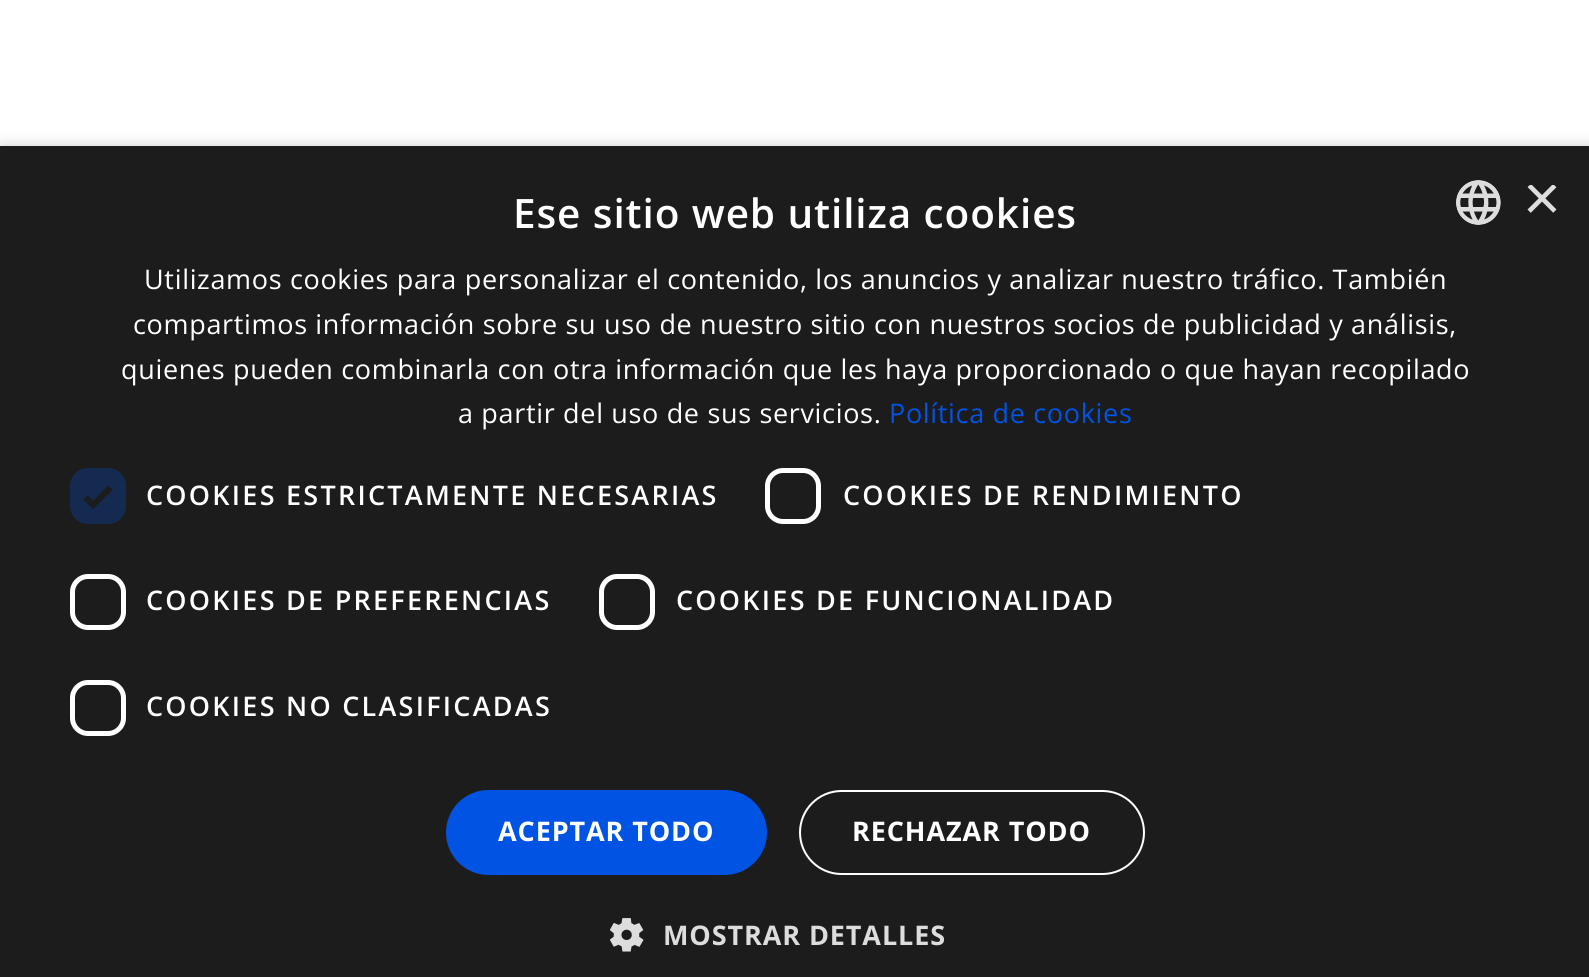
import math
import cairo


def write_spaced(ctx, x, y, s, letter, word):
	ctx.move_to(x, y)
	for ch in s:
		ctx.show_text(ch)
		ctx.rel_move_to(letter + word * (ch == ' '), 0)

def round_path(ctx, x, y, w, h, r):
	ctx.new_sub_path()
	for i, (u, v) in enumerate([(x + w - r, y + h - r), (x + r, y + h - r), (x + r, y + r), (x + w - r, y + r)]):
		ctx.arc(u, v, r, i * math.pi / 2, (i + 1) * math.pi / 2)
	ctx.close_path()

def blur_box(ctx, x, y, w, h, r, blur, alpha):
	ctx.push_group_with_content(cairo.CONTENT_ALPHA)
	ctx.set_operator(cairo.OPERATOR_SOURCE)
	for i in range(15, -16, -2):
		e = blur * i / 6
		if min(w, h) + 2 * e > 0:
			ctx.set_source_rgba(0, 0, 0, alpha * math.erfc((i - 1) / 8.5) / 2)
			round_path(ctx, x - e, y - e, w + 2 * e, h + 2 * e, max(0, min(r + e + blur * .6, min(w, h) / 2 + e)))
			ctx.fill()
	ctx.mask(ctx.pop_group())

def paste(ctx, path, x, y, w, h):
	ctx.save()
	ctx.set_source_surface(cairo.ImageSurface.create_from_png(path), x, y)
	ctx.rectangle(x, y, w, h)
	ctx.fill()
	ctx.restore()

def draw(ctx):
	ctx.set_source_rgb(1, 1, 1)
	ctx.paint()
	ctx.set_source_rgb(0, 0, 0)
	blur_box(ctx, 2, 151, 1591, 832, 0, 9, 0.35)
	ctx.set_source_rgb(0.11, 0.11, 0.11)
	ctx.rectangle(0, 146, 1589, 831)
	ctx.fill()
	ctx.select_font_face('Open Sans SemiBold')
	ctx.set_font_size(40.5)
	ctx.set_source_rgb(1, 1, 1)
	write_spaced(ctx, 513, 228, 'Ese sitio web utiliza cookies', 0.9, 0)
	paste(ctx, 'media/1.png', 1456, 180, 45, 45)
	ctx.save()
	ctx.rectangle(1523, 185, 34, 33)
	ctx.clip()
	ctx.select_font_face('Liberation Sans')
	ctx.set_font_size(65)
	ctx.set_source_rgb(0.867, 0.867, 0.867)
	ctx.move_to(1523, 220)
	ctx.show_text('×')
	ctx.restore()
	ctx.select_font_face('Open Sans')
	ctx.set_font_size(27)
	for x, y, s in [
		(144, 289, 'Utilizamos cookies para personalizar el contenido, los anuncios y analizar nuestro tráfico. También'),
		(133, 334, 'compartimos información sobre su uso de nuestro sitio con nuestros socios de publicidad y análisis,'),
		(121, 379, 'quienes pueden combinarla con otra información que les haya proporcionado o que hayan recopilado'),
		(458, 423, 'a partir del uso de sus servicios.'),
	]:
		write_spaced(ctx, x, y, s, 0.67, 0)
	ctx.set_source_rgb(0, 0.325, 0.89)
	write_spaced(ctx, 889, 423, 'Política de cookies', 0.67, 0)
	ctx.set_source_rgb(0.082, 0.165, 0.314)
	round_path(ctx, 70, 468, 56, 56, 18)
	ctx.fill()
	ctx.new_path()
	ctx.move_to(85.5, 497.5)
	ctx.line_to(93, 505)
	ctx.line_to(110.5, 487.5)
	ctx.set_source_rgb(0.11, 0.11, 0.11)
	ctx.set_line_width(5.9)
	ctx.stroke()
	ctx.select_font_face('Open Sans SemiBold')
	ctx.set_source_rgb(1, 1, 1)
	write_spaced(ctx, 146, 505, 'COOKIES ESTRICTAMENTE NECESARIAS', 2.25, 0)
	round_path(ctx, 767.5, 470.5, 51, 51, 15.5)
	ctx.set_line_width(5)
	ctx.stroke()
	write_spaced(ctx, 843, 505, 'COOKIES DE RENDIMIENTO', 2.25, 0)
	round_path(ctx, 72.5, 576.5, 51, 51, 15.5)
	ctx.stroke()
	write_spaced(ctx, 146, 610, 'COOKIES DE PREFERENCIAS', 2.25, 0)
	round_path(ctx, 601.5, 576.5, 51, 51, 15.5)
	ctx.stroke()
	write_spaced(ctx, 676, 610, 'COOKIES DE FUNCIONALIDAD', 2.25, 0)
	round_path(ctx, 72.5, 682.5, 51, 51, 15.5)
	ctx.stroke()
	write_spaced(ctx, 146, 716, 'COOKIES NO CLASIFICADAS', 2.25, 0)
	ctx.set_source_rgb(0, 0.325, 0.89)
	round_path(ctx, 446, 790, 321, 85, 42.5)
	ctx.fill()
	ctx.select_font_face('Open Sans', cairo.FONT_SLANT_NORMAL, cairo.FONT_WEIGHT_BOLD)
	ctx.set_source_rgb(1, 1, 1)
	write_spaced(ctx, 498, 841, 'ACEPTAR TODO', 0.9, 0)
	round_path(ctx, 800, 791, 344, 83, 41.5)
	ctx.set_line_width(2)
	ctx.stroke()
	write_spaced(ctx, 852, 841, 'RECHAZAR TODO', 0.9, 0)
	paste(ctx, 'media/2.png', 610, 918, 34, 34)
	ctx.set_source_rgb(0.867, 0.867, 0.867)
	write_spaced(ctx, 663, 945, 'MOSTRAR DETALLES', 0.9, 0)


surface = cairo.ImageSurface(cairo.FORMAT_RGB24, 1589, 977)
ctx = cairo.Context(surface)
options = cairo.FontOptions()
options.set_hint_metrics(cairo.HINT_METRICS_OFF)
options.set_hint_style(cairo.HINT_STYLE_NONE)
ctx.set_font_options(options)
ctx.set_miter_limit(4)
draw(ctx)
surface.write_to_png('image.png')
